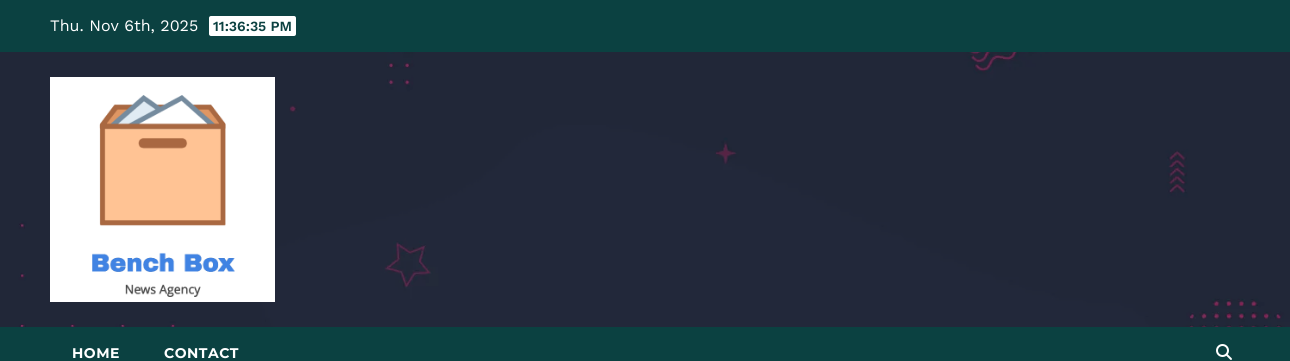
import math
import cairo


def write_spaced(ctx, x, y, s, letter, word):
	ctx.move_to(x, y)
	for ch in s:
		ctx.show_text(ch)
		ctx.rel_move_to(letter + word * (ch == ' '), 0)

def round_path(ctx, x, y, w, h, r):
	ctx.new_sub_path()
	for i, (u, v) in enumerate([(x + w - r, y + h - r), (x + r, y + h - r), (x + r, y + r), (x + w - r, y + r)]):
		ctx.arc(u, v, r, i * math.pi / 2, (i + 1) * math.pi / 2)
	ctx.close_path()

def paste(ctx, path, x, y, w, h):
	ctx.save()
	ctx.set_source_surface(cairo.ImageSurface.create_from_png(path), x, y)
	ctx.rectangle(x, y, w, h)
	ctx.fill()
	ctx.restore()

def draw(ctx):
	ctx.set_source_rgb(0.043, 0.255, 0.255)
	ctx.paint()
	ctx.select_font_face('Work Sans')
	ctx.set_font_size(16)
	ctx.set_source_rgb(1, 1, 1)
	ctx.move_to(50, 31)
	ctx.show_text('Thu. Nov 6th, 2025')
	round_path(ctx, 209, 16, 87, 20, 2)
	ctx.fill()
	ctx.select_font_face('Work Sans SemiBold')
	ctx.set_font_size(14)
	ctx.set_source_rgb(0.043, 0.255, 0.255)
	ctx.move_to(213, 31)
	ctx.show_text('11:36:35 PM')
	paste(ctx, 'media/1.png', 0, 52, 1290, 275)
	paste(ctx, 'media/2.png', 50, 77, 225, 225)
	ctx.select_font_face('Montserrat', cairo.FONT_SLANT_NORMAL, cairo.FONT_WEIGHT_BOLD)
	ctx.set_source_rgb(1, 1, 1)
	write_spaced(ctx, 72, 358, 'HOME', 0.5, 0)
	write_spaced(ctx, 164, 358, 'CONTACT', 0.5, 0)
	paste(ctx, 'media/3.png', 1216, 344, 16, 16)


surface = cairo.ImageSurface(cairo.FORMAT_RGB24, 1290, 361)
ctx = cairo.Context(surface)
options = cairo.FontOptions()
options.set_hint_metrics(cairo.HINT_METRICS_OFF)
options.set_hint_style(cairo.HINT_STYLE_NONE)
ctx.set_font_options(options)
ctx.set_miter_limit(4)
draw(ctx)
surface.write_to_png('image.png')
